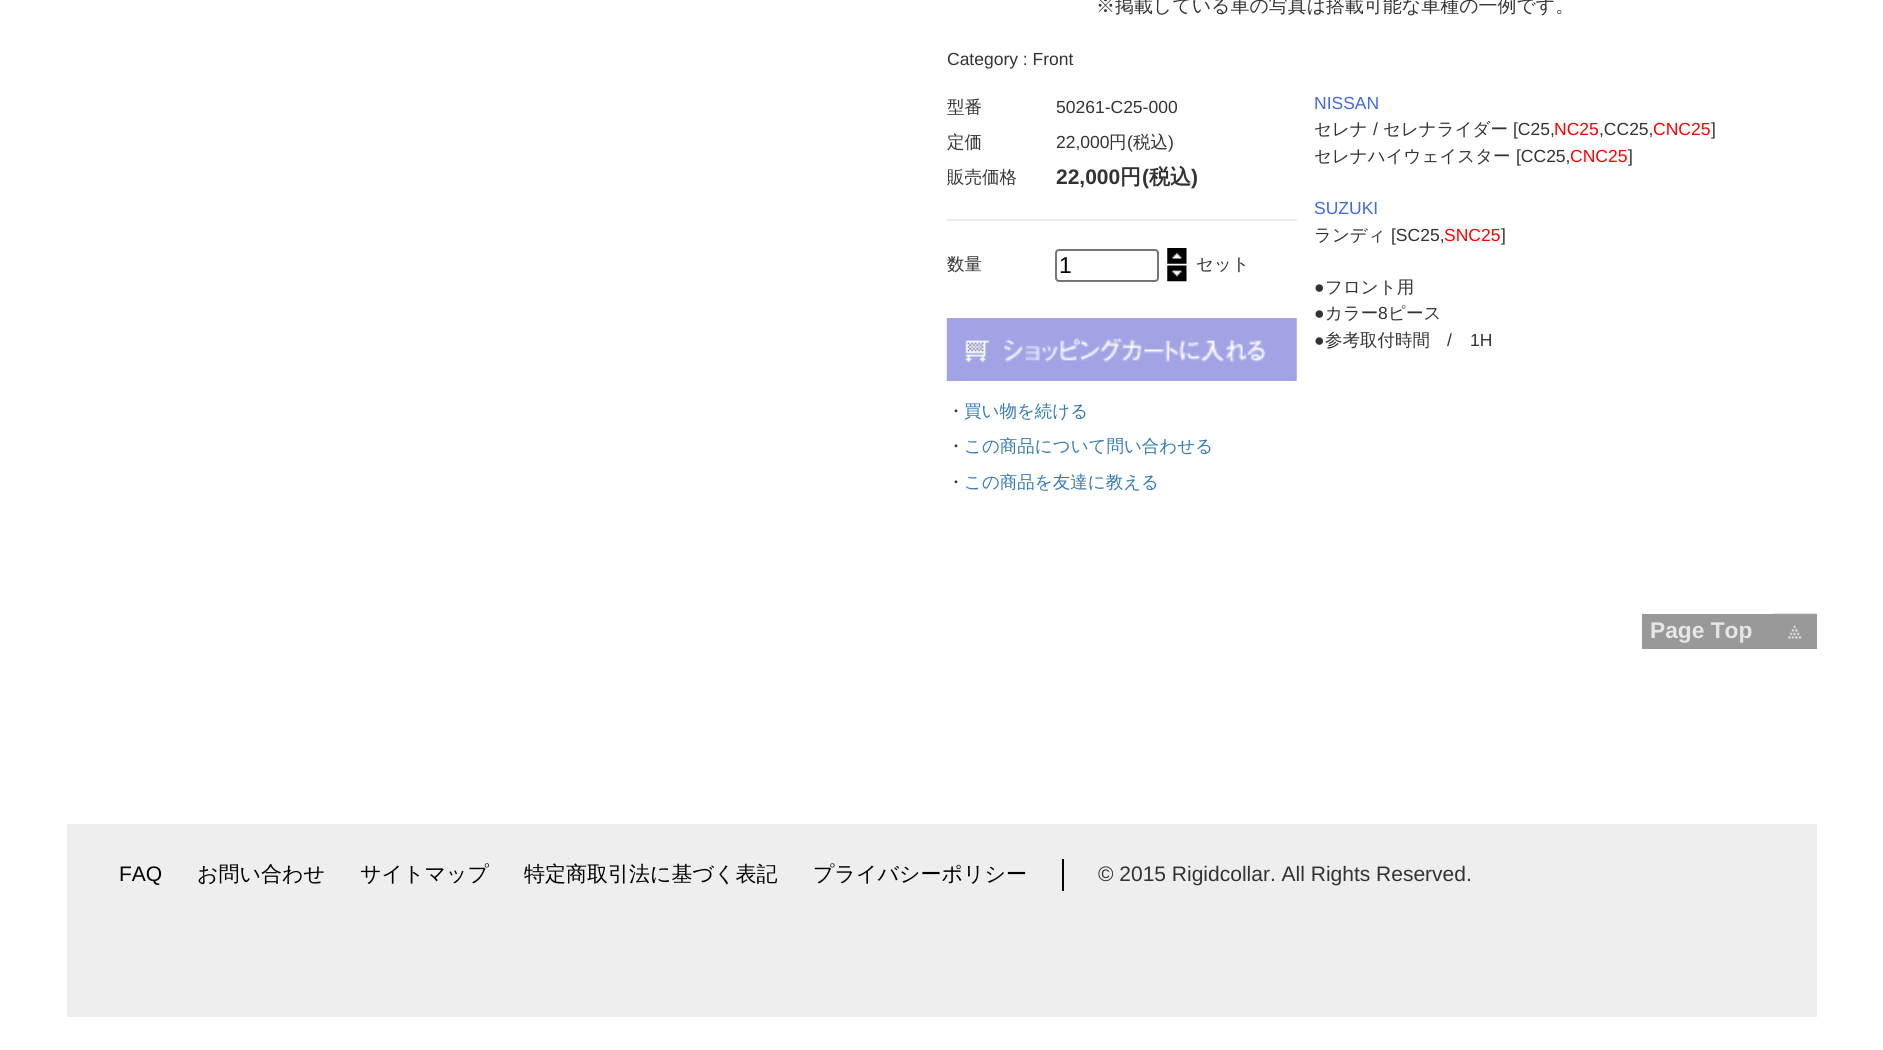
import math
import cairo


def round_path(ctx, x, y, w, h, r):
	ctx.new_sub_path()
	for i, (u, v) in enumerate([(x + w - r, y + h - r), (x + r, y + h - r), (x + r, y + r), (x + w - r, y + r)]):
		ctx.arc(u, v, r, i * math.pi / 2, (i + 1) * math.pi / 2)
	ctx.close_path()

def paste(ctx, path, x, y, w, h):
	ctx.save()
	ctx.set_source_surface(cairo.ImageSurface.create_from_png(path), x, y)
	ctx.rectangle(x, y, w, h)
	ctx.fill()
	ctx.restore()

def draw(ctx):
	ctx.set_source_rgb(1, 1, 1)
	ctx.paint()
	ctx.select_font_face('WenQuanYi Zen Hei Medium')
	ctx.set_font_size(18.95)
	ctx.set_source_rgb(0.2, 0.2, 0.2)
	ctx.move_to(1096, 12)
	ctx.show_text('※掲載している車の写真は搭載可能な車種の一例です。')
	ctx.select_font_face('Liberation Sans')
	ctx.set_font_size(17.5)
	ctx.move_to(947, 65)
	ctx.show_text('Category : Front')
	ctx.select_font_face('WenQuanYi Zen Hei Medium')
	ctx.move_to(947, 113)
	ctx.show_text('型番')
	ctx.select_font_face('Liberation Sans')
	ctx.move_to(1056, 113)
	ctx.show_text('50261-C25-000')
	ctx.select_font_face('WenQuanYi Zen Hei Medium')
	ctx.move_to(947, 148)
	ctx.show_text('定価')
	ctx.select_font_face('Liberation Sans')
	ctx.move_to(1056, 148)
	ctx.show_text('22,000')
	ctx.select_font_face('WenQuanYi Zen Hei Medium')
	ctx.move_to(1109, 148)
	ctx.show_text('円')
	ctx.select_font_face('Liberation Sans')
	ctx.move_to(1127, 148)
	ctx.show_text('(')
	ctx.select_font_face('WenQuanYi Zen Hei Medium')
	ctx.move_to(1133, 148)
	ctx.show_text('税込')
	ctx.select_font_face('Liberation Sans')
	ctx.move_to(1168, 148)
	ctx.show_text(')')
	ctx.select_font_face('WenQuanYi Zen Hei Medium')
	ctx.move_to(947, 183)
	ctx.show_text('販売価格')
	ctx.select_font_face('Liberation Sans', cairo.FONT_SLANT_NORMAL, cairo.FONT_WEIGHT_BOLD)
	ctx.set_font_size(21)
	ctx.move_to(1056, 184)
	ctx.show_text('22,000')
	ctx.select_font_face('WenQuanYi Zen Hei', cairo.FONT_SLANT_NORMAL, cairo.FONT_WEIGHT_BOLD)
	ctx.move_to(1120, 184)
	ctx.show_text('円')
	ctx.select_font_face('Liberation Sans', cairo.FONT_SLANT_NORMAL, cairo.FONT_WEIGHT_BOLD)
	ctx.move_to(1142, 184)
	ctx.show_text('(')
	ctx.select_font_face('WenQuanYi Zen Hei', cairo.FONT_SLANT_NORMAL, cairo.FONT_WEIGHT_BOLD)
	ctx.move_to(1149, 184)
	ctx.show_text('税込')
	ctx.select_font_face('Liberation Sans', cairo.FONT_SLANT_NORMAL, cairo.FONT_WEIGHT_BOLD)
	ctx.move_to(1191, 184)
	ctx.show_text(')')
	paste(ctx, 'media/1.png', 946, 219, 351, 2)
	ctx.select_font_face('WenQuanYi Zen Hei Medium')
	ctx.set_font_size(17.5)
	ctx.move_to(947, 270)
	ctx.show_text('数量')
	round_path(ctx, 1056, 250, 102, 31, 3)
	ctx.set_source_rgb(0.463, 0.463, 0.463)
	ctx.stroke()
	ctx.select_font_face('Liberation Sans')
	ctx.set_font_size(23)
	ctx.set_source_rgb(0, 0, 0)
	ctx.move_to(1059, 273)
	ctx.show_text('1')
	paste(ctx, 'media/2.png', 1167, 248, 20, 16)
	paste(ctx, 'media/3.png', 1167, 265, 20, 17)
	ctx.select_font_face('WenQuanYi Zen Hei Medium')
	ctx.set_font_size(17.5)
	ctx.set_source_rgb(0.2, 0.2, 0.2)
	ctx.move_to(1196, 270)
	ctx.show_text('セット')
	paste(ctx, 'media/4.png', 946, 318, 351, 63)
	ctx.move_to(947, 417)
	ctx.show_text('・')
	ctx.set_source_rgb(0.2, 0.478, 0.718)
	ctx.move_to(964, 417)
	ctx.show_text('買い物を続ける')
	ctx.set_source_rgb(0.2, 0.2, 0.2)
	ctx.move_to(947, 452)
	ctx.show_text('・')
	ctx.set_source_rgb(0.2, 0.478, 0.718)
	ctx.move_to(964, 452)
	ctx.show_text('この商品について問い合わせる')
	ctx.set_source_rgb(0.2, 0.2, 0.2)
	ctx.move_to(947, 488)
	ctx.show_text('・')
	ctx.set_source_rgb(0.2, 0.478, 0.718)
	ctx.move_to(964, 488)
	ctx.show_text('この商品を友達に教える')
	ctx.select_font_face('Liberation Sans')
	ctx.set_source_rgb(0.255, 0.412, 0.882)
	ctx.move_to(1314, 109)
	ctx.show_text('NISSAN')
	ctx.select_font_face('WenQuanYi Zen Hei Medium')
	ctx.set_source_rgb(0.2, 0.2, 0.2)
	ctx.move_to(1314, 135)
	ctx.show_text('セレナ')
	ctx.select_font_face('Liberation Sans')
	ctx.move_to(1373, 135)
	ctx.show_text('/')
	ctx.select_font_face('WenQuanYi Zen Hei Medium')
	ctx.move_to(1383, 135)
	ctx.show_text('セレナライダー')
	ctx.select_font_face('Liberation Sans')
	ctx.move_to(1513, 135)
	ctx.show_text('[C25,')
	ctx.set_source_rgb(1, 0, 0)
	ctx.move_to(1554, 135)
	ctx.show_text('NC25')
	ctx.set_source_rgb(0.2, 0.2, 0.2)
	ctx.move_to(1599, 135)
	ctx.show_text(',CC25,')
	ctx.set_source_rgb(1, 0, 0)
	ctx.move_to(1653, 135)
	ctx.show_text('CNC25')
	ctx.set_source_rgb(0.2, 0.2, 0.2)
	ctx.move_to(1711, 135)
	ctx.show_text(']')
	ctx.select_font_face('WenQuanYi Zen Hei Medium')
	ctx.move_to(1314, 162)
	ctx.show_text('セレナハイウェイスター')
	ctx.select_font_face('Liberation Sans')
	ctx.move_to(1516, 162)
	ctx.show_text('[CC25,')
	ctx.set_source_rgb(1, 0, 0)
	ctx.move_to(1570, 162)
	ctx.show_text('CNC25')
	ctx.set_source_rgb(0.2, 0.2, 0.2)
	ctx.move_to(1628, 162)
	ctx.show_text(']')
	ctx.set_source_rgb(0.255, 0.412, 0.882)
	ctx.move_to(1314, 214)
	ctx.show_text('SUZUKI')
	ctx.select_font_face('WenQuanYi Zen Hei Medium')
	ctx.set_source_rgb(0.2, 0.2, 0.2)
	ctx.move_to(1314, 241)
	ctx.show_text('ランディ')
	ctx.select_font_face('Liberation Sans')
	ctx.move_to(1391, 241)
	ctx.show_text('[SC25,')
	ctx.set_source_rgb(1, 0, 0)
	ctx.move_to(1444, 241)
	ctx.show_text('SNC25')
	ctx.set_source_rgb(0.2, 0.2, 0.2)
	ctx.move_to(1501, 241)
	ctx.show_text(']')
	ctx.move_to(1314, 293)
	ctx.show_text('●')
	ctx.select_font_face('WenQuanYi Zen Hei Medium')
	ctx.move_to(1325, 293)
	ctx.show_text('フロント用')
	ctx.select_font_face('Liberation Sans')
	ctx.move_to(1314, 319)
	ctx.show_text('●')
	ctx.select_font_face('WenQuanYi Zen Hei Medium')
	ctx.move_to(1325, 319)
	ctx.show_text('カラー')
	ctx.select_font_face('Liberation Sans')
	ctx.move_to(1378, 319)
	ctx.show_text('8')
	ctx.select_font_face('WenQuanYi Zen Hei Medium')
	ctx.move_to(1388, 319)
	ctx.show_text('ピース')
	ctx.select_font_face('Liberation Sans')
	ctx.move_to(1314, 346)
	ctx.show_text('●')
	ctx.select_font_face('WenQuanYi Zen Hei Medium')
	ctx.move_to(1325, 346)
	ctx.show_text('参考取付時間')
	ctx.select_font_face('Liberation Sans')
	ctx.move_to(1447, 346)
	ctx.show_text('/')
	ctx.move_to(1470, 346)
	ctx.show_text('1H')
	ctx.set_source_rgb(0.6, 0.6, 0.6)
	ctx.rectangle(1642, 614, 175, 35)
	ctx.fill()
	paste(ctx, 'media/5.png', 1772, 613, 45, 26)
	ctx.select_font_face('Liberation Sans', cairo.FONT_SLANT_NORMAL, cairo.FONT_WEIGHT_BOLD)
	ctx.set_font_size(22.75)
	ctx.set_source_rgb(0.902, 0.902, 0.902)
	ctx.move_to(1650, 638)
	ctx.show_text('Page Top')
	ctx.set_source_rgb(0.933, 0.933, 0.933)
	ctx.rectangle(67, 824, 1750, 193)
	ctx.fill()
	ctx.select_font_face('Liberation Sans')
	ctx.set_font_size(21)
	ctx.set_source_rgb(0, 0, 0)
	ctx.move_to(119, 881)
	ctx.show_text('FAQ')
	ctx.select_font_face('WenQuanYi Zen Hei Medium')
	for x, y, s in [
		(197, 881, 'お問い合わせ'),
		(360, 881, 'サイトマップ'),
		(524, 881, '特定商取引法に基づく表記'),
		(813, 881, 'プライバシーポリシー'),
	]:
		ctx.move_to(x, y)
		ctx.show_text(s)
	ctx.rectangle(1062, 859, 2, 32)
	ctx.fill()
	ctx.select_font_face('Liberation Sans')
	ctx.set_source_rgb(0.2, 0.2, 0.2)
	ctx.move_to(1098, 881)
	ctx.show_text('© 2015 Rigidcollar. All Rights Reserved.')


surface = cairo.ImageSurface(cairo.FORMAT_RGB24, 1883, 1050)
ctx = cairo.Context(surface)
options = cairo.FontOptions()
options.set_hint_metrics(cairo.HINT_METRICS_OFF)
options.set_hint_style(cairo.HINT_STYLE_NONE)
ctx.set_font_options(options)
ctx.set_miter_limit(4)
draw(ctx)
surface.write_to_png('image.png')
